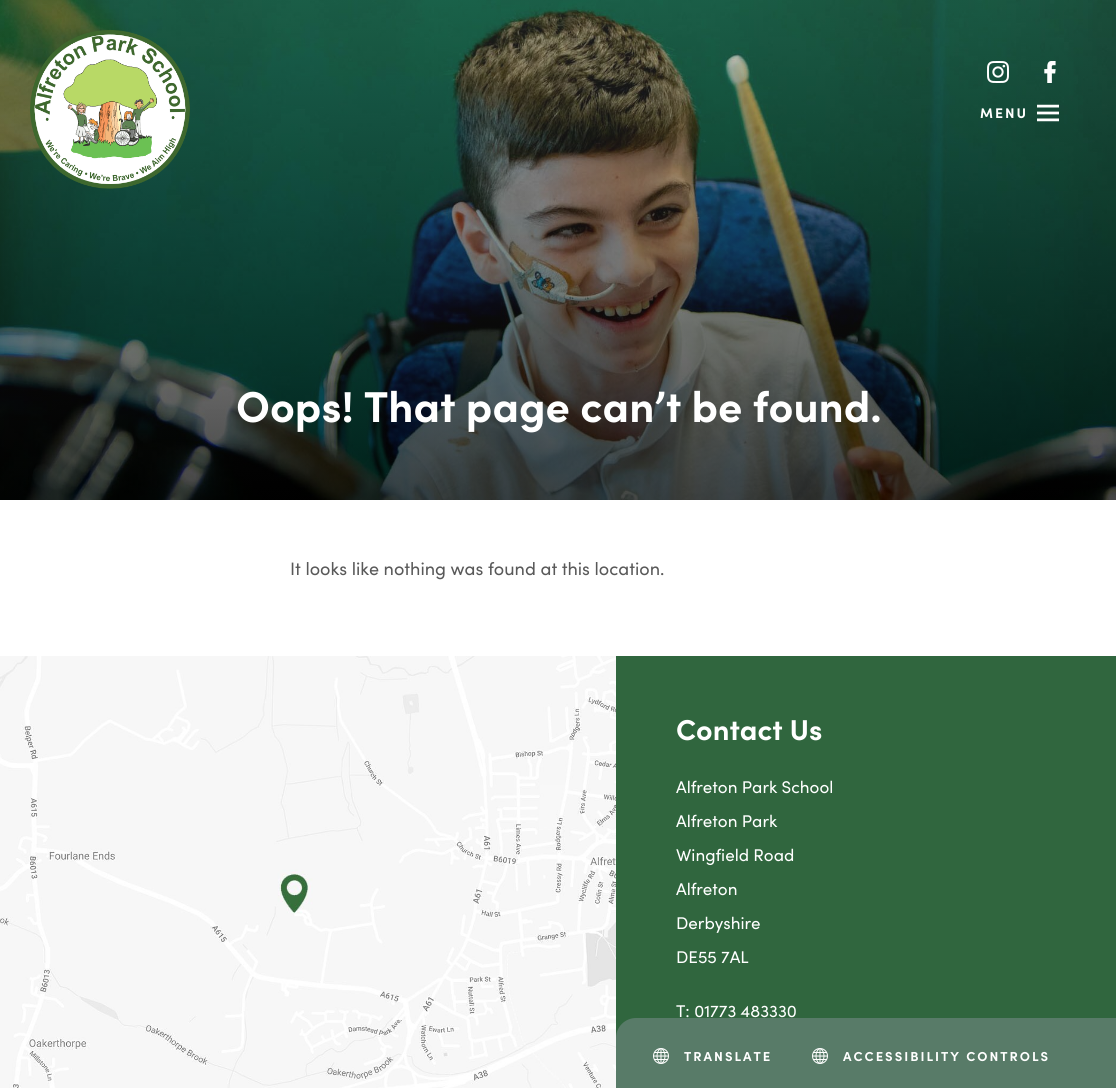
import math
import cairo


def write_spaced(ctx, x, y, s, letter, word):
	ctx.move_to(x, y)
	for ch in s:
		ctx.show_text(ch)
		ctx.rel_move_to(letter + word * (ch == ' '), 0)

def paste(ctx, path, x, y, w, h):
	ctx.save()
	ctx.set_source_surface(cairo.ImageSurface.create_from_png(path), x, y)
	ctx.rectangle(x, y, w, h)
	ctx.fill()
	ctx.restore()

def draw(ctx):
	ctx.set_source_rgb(1, 1, 1)
	ctx.paint()
	paste(ctx, 'media/5.png', 0, 0, 1116, 500)
	paste(ctx, 'media/1.png', 30, 30, 160, 159)
	paste(ctx, 'media/2.png', 987, 61, 22, 22)
	paste(ctx, 'media/3.png', 1044, 61, 12, 22)
	ctx.select_font_face('Sofia', cairo.FONT_SLANT_NORMAL, cairo.FONT_WEIGHT_BOLD)
	ctx.set_font_size(14)
	ctx.set_source_rgb(1, 1, 1)
	write_spaced(ctx, 980, 118, 'MENU', 2, 0)
	paste(ctx, 'media/4.png', 1037, 104, 22, 18)
	ctx.set_font_size(43.25)
	ctx.move_to(236, 422)
	ctx.show_text('Oops! That page can’t be found.')
	ctx.select_font_face('Sofia')
	ctx.set_font_size(18)
	ctx.set_source_rgb(0.349, 0.349, 0.349)
	ctx.move_to(290, 575)
	ctx.show_text('It looks like nothing was found at this location.')
	paste(ctx, 'media/6.png', 0, 656, 616, 432)
	ctx.set_source_rgb(0.188, 0.4, 0.243)
	ctx.rectangle(616, 656, 500, 382)
	ctx.fill()
	ctx.select_font_face('Sofia', cairo.FONT_SLANT_NORMAL, cairo.FONT_WEIGHT_BOLD)
	ctx.set_font_size(28.75)
	ctx.set_source_rgb(1, 1, 1)
	ctx.move_to(676, 740)
	ctx.show_text('Contact Us')
	ctx.select_font_face('Sofia')
	ctx.set_font_size(17)
	for x, y, s in [
		(676, 793, 'Alfreton Park School'),
		(676, 827, 'Alfreton Park'),
		(676, 861, 'Wingfield Road'),
		(676, 895, 'Alfreton'),
		(676, 929, 'Derbyshire'),
		(676, 963, 'DE55 7AL'),
		(676, 1017, 'T: 01773 483330'),
	]:
		ctx.move_to(x, y)
		ctx.show_text(s)
	ctx.set_source_rgb(0.345, 0.482, 0.408)
	ctx.new_path()
	ctx.move_to(636, 1018)
	ctx.line_to(1116, 1018)
	ctx.line_to(1116, 1088)
	ctx.line_to(616, 1088)
	ctx.line_to(616, 1038)
	ctx.curve_to(616, 1027, 625, 1018, 636, 1018)
	ctx.close_path()
	ctx.fill()
	paste(ctx, 'media/7.png', 653, 1048, 16, 16)
	ctx.select_font_face('Sofia', cairo.FONT_SLANT_NORMAL, cairo.FONT_WEIGHT_BOLD)
	ctx.set_font_size(13)
	ctx.set_source_rgb(1, 1, 1)
	write_spaced(ctx, 684, 1061, 'TRANSLATE', 2, 0)
	paste(ctx, 'media/7.png', 812, 1048, 16, 16)
	write_spaced(ctx, 843, 1061, 'ACCESSIBILITY CONTROLS', 2, 0)


surface = cairo.ImageSurface(cairo.FORMAT_RGB24, 1116, 1088)
ctx = cairo.Context(surface)
options = cairo.FontOptions()
options.set_hint_metrics(cairo.HINT_METRICS_OFF)
options.set_hint_style(cairo.HINT_STYLE_NONE)
ctx.set_font_options(options)
ctx.set_miter_limit(4)
draw(ctx)
surface.write_to_png('image.png')
